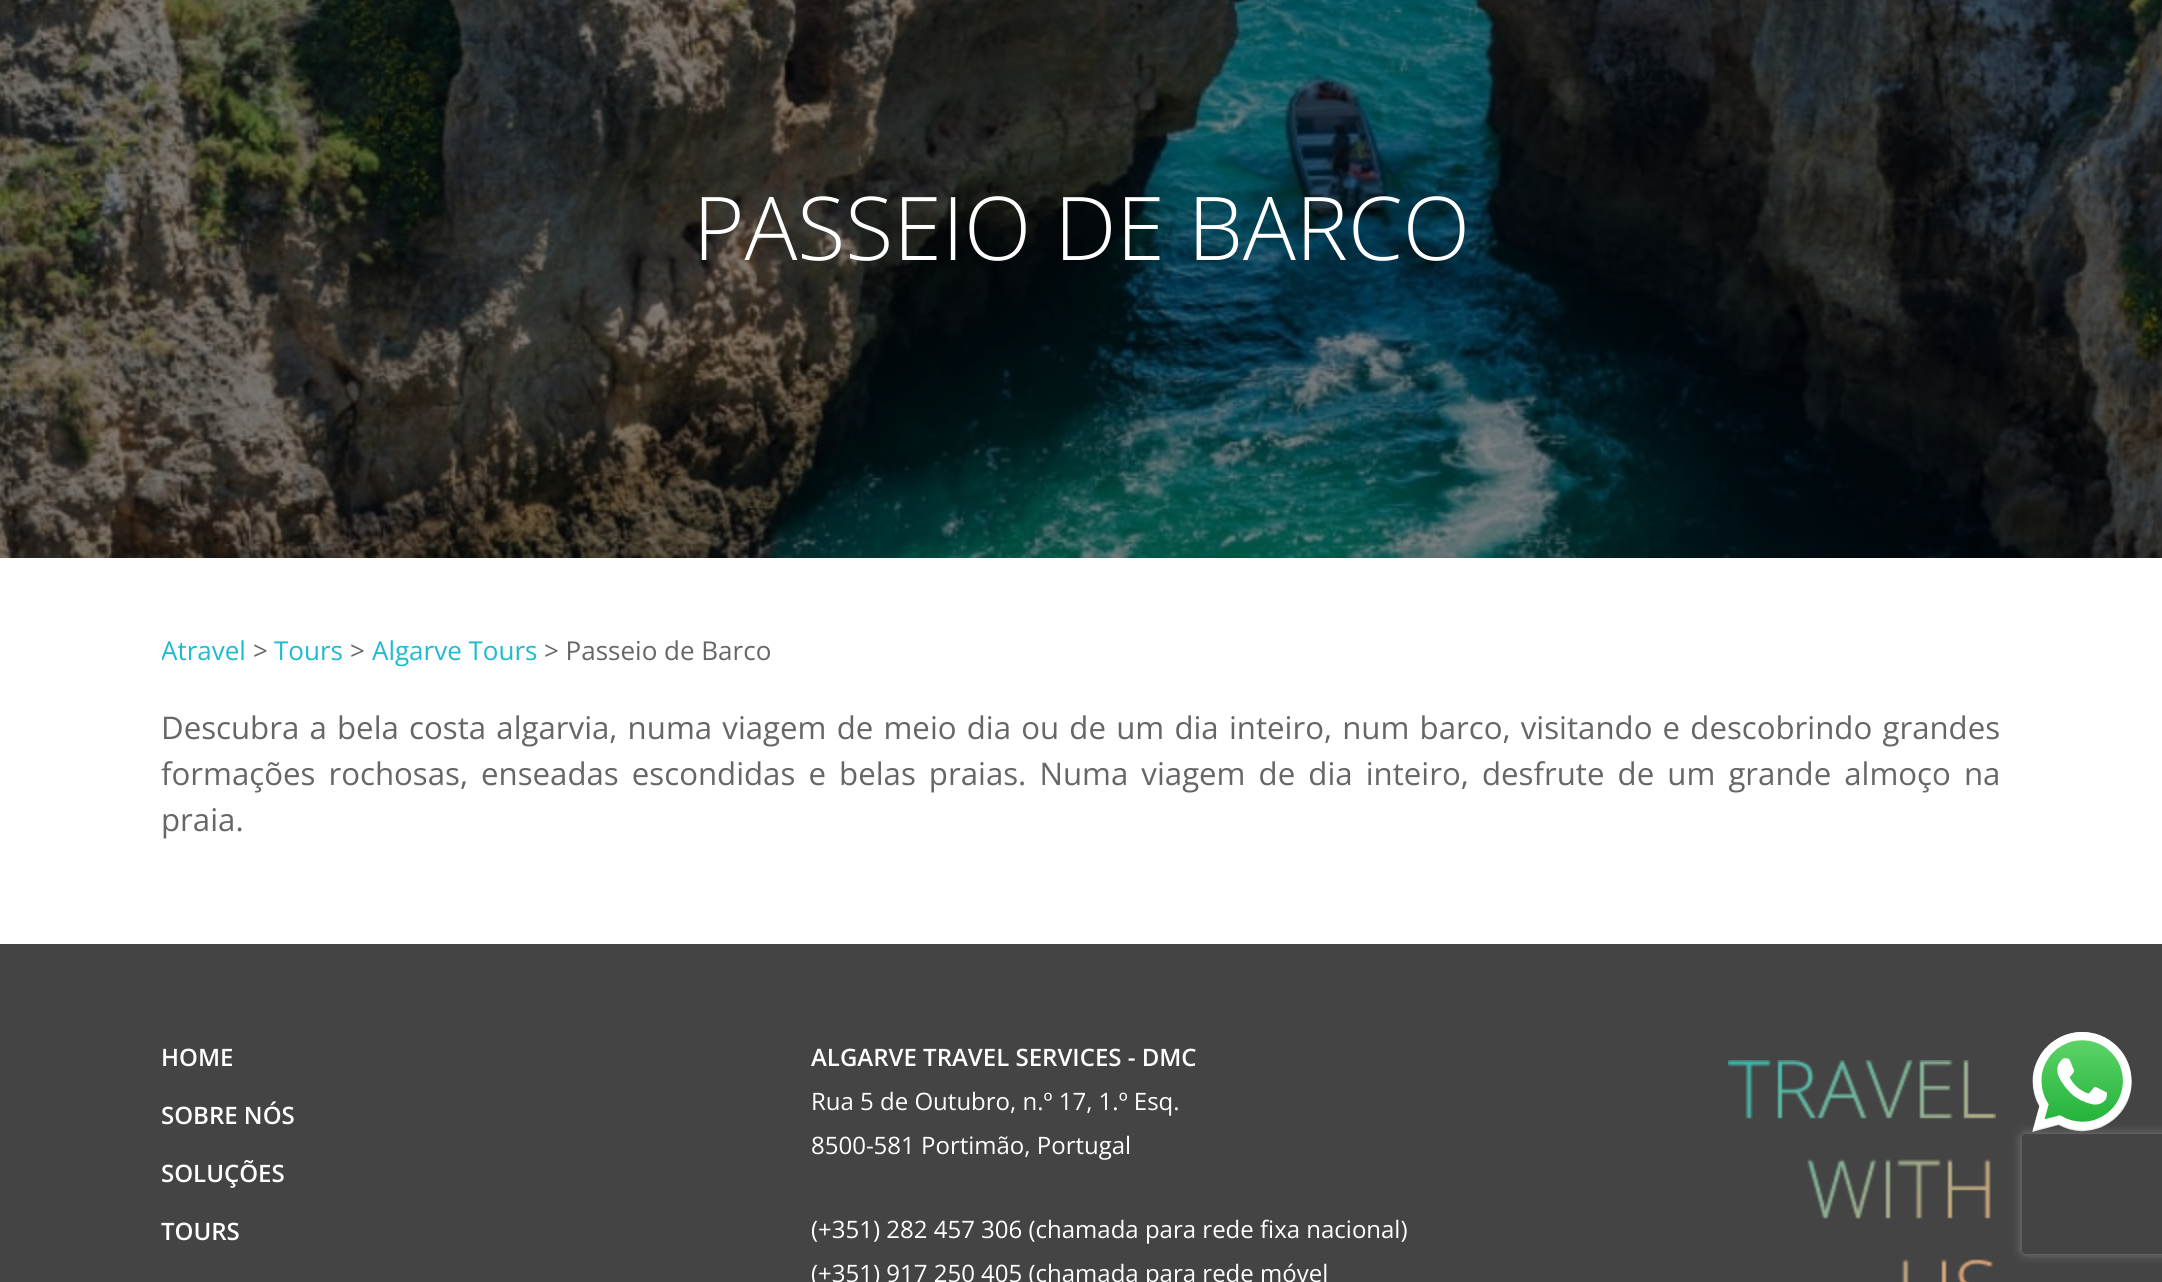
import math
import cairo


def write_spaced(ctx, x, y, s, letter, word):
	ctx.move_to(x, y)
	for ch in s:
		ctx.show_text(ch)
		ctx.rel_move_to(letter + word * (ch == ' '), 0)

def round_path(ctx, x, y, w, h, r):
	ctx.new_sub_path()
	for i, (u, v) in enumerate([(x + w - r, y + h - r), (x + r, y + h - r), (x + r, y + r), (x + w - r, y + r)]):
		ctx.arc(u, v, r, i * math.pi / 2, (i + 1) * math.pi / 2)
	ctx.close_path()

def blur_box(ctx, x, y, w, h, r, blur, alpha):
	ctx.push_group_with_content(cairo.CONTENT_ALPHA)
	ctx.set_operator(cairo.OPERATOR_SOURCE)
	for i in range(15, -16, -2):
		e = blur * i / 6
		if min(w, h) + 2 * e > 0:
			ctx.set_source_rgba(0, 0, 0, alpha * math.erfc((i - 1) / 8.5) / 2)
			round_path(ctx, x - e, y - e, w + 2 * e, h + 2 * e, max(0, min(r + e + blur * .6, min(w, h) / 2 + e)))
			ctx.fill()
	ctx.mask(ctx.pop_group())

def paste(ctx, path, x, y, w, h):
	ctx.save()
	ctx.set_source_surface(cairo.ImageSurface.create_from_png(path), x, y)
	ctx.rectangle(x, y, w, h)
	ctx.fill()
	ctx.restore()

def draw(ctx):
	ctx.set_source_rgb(1, 1, 1)
	ctx.paint()
	paste(ctx, 'media/1.png', 0, 0, 2162, 558)
	ctx.select_font_face('Open Sans Light')
	ctx.set_font_size(88)
	ctx.set_source_rgb(1, 1, 1)
	ctx.move_to(693, 260)
	ctx.show_text('PASSEIO DE BARCO')
	ctx.save()
	ctx.rectangle(162, 628, 1840, 246)
	ctx.clip()
	ctx.select_font_face('Open Sans')
	ctx.set_font_size(26)
	ctx.set_source_rgb(0.118, 0.729, 0.812)
	ctx.move_to(161, 660)
	ctx.show_text('Atravel')
	ctx.restore()
	ctx.select_font_face('Open Sans')
	ctx.set_font_size(26)
	ctx.set_source_rgb(0.4, 0.4, 0.4)
	ctx.move_to(253, 660)
	ctx.show_text('>')
	ctx.set_source_rgb(0.118, 0.729, 0.812)
	ctx.move_to(274, 660)
	ctx.show_text('Tours')
	ctx.set_source_rgb(0.4, 0.4, 0.4)
	ctx.move_to(350, 660)
	ctx.show_text('>')
	ctx.set_source_rgb(0.118, 0.729, 0.812)
	ctx.move_to(372, 660)
	ctx.show_text('Algarve Tours')
	ctx.set_source_rgb(0.4, 0.4, 0.4)
	ctx.move_to(544, 660)
	ctx.show_text('> Passeio de Barco')
	ctx.set_font_size(31.2)
	write_spaced(ctx, 161, 739, 'Descubra a bela costa algarvia, numa viagem de meio dia ou de um dia inteiro, num barco, visitando e descobrindo grandes', 0, 2.1)
	write_spaced(ctx, 161, 785, 'formações rochosas, enseadas escondidas e belas praias. Numa viagem de dia inteiro, desfrute de um grande almoço na', 0, 5)
	ctx.move_to(161, 831)
	ctx.show_text('praia.')
	ctx.set_source_rgb(0.267, 0.267, 0.267)
	ctx.rectangle(0, 944, 2162, 338)
	ctx.fill()
	ctx.select_font_face('Open Sans SemiBold')
	ctx.set_font_size(24)
	ctx.set_source_rgb(1, 1, 1)
	for x, y, s in [
		(161, 1066, 'HOME'),
		(161, 1124, 'SOBRE NÓS'),
		(161, 1182, 'SOLUÇÕES'),
		(161, 1240, 'TOURS'),
		(811, 1066, 'ALGARVE TRAVEL SERVICES - DMC'),
	]:
		ctx.move_to(x, y)
		ctx.show_text(s)
	ctx.select_font_face('Open Sans')
	for x, y, s in [
		(811, 1110, 'Rua 5 de Outubro, n.º 17, 1.º Esq.'),
		(811, 1154, '8500-581 Portimão, Portugal'),
		(811, 1238, '(+351) 282 457 306 (chamada para rede fixa nacional)'),
		(811, 1282, '(+351) 917 250 405 (chamada para rede móvel'),
	]:
		ctx.move_to(x, y)
		ctx.show_text(s)
	paste(ctx, 'media/2.png', 1728, 1060, 268, 222)
	ctx.save()
	ctx.set_fill_rule(cairo.FILL_RULE_EVEN_ODD)
	ctx.new_path()
	ctx.move_to(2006, 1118)
	ctx.line_to(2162, 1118)
	ctx.line_to(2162, 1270)
	ctx.line_to(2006, 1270)
	ctx.close_path()
	ctx.move_to(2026, 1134)
	ctx.line_to(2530, 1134)
	ctx.curve_to(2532, 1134, 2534, 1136, 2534, 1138)
	ctx.line_to(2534, 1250)
	ctx.curve_to(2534, 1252, 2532, 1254, 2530, 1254)
	ctx.line_to(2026, 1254)
	ctx.curve_to(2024, 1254, 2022, 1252, 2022, 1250)
	ctx.line_to(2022, 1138)
	ctx.curve_to(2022, 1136, 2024, 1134, 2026, 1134)
	ctx.close_path()
	ctx.clip()
	ctx.set_source_rgb(0.502, 0.502, 0.502)
	blur_box(ctx, 2022, 1134, 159, 120, 4, 5, 1)
	ctx.restore()
	paste(ctx, 'media/3.png', 2032, 1032, 100, 100)


surface = cairo.ImageSurface(cairo.FORMAT_RGB24, 2162, 1282)
ctx = cairo.Context(surface)
options = cairo.FontOptions()
options.set_hint_metrics(cairo.HINT_METRICS_OFF)
options.set_hint_style(cairo.HINT_STYLE_NONE)
ctx.set_font_options(options)
ctx.set_miter_limit(4)
draw(ctx)
surface.write_to_png('image.png')
